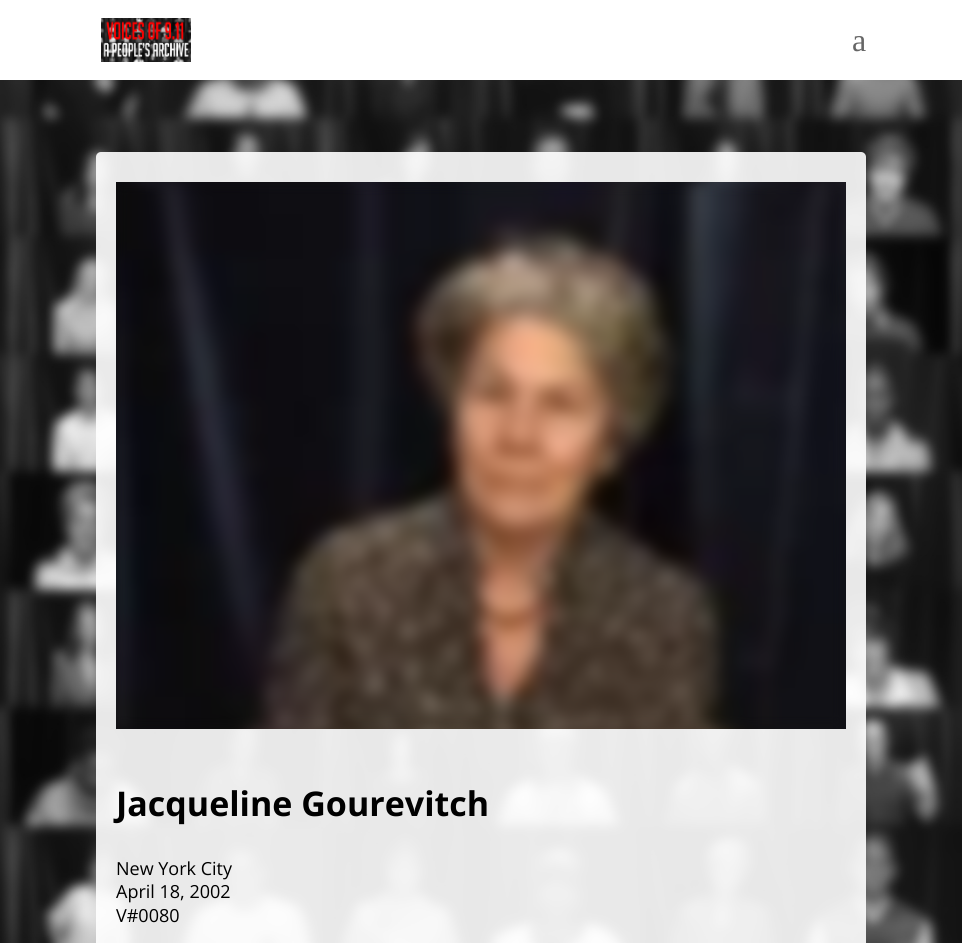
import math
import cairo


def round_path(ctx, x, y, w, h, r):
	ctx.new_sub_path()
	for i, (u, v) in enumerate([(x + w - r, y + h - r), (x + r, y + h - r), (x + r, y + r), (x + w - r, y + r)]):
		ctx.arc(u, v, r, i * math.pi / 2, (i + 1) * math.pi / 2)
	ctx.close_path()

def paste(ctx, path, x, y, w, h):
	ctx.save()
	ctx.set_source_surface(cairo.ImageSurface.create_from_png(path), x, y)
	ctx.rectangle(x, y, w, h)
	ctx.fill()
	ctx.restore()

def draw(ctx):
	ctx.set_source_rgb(1, 1, 1)
	ctx.paint()
	paste(ctx, 'media/1.png', 101, 18, 90, 44)
	ctx.select_font_face('Liberation Serif')
	ctx.set_font_size(32)
	ctx.set_source_rgb(0.4, 0.4, 0.4)
	ctx.move_to(852, 51)
	ctx.show_text('a')
	paste(ctx, 'media/2.png', 0, 80, 962, 863)
	ctx.set_source_rgba(1, 1, 1, 0.9)
	round_path(ctx, 96, 152, 770, 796, 5)
	ctx.fill()
	paste(ctx, 'media/3.png', 116, 182, 730, 547)
	ctx.select_font_face('Open Sans', cairo.FONT_SLANT_NORMAL, cairo.FONT_WEIGHT_BOLD)
	ctx.set_font_size(34)
	ctx.set_source_rgb(0, 0, 0)
	ctx.move_to(116, 816)
	ctx.show_text('Jacqueline Gourevitch')
	ctx.select_font_face('Open Sans')
	ctx.set_font_size(18)
	for x, y, s in [
		(116, 875, 'New York City'),
		(116, 898, 'April 18, 2002'),
		(116, 922, 'V#0080'),
	]:
		ctx.move_to(x, y)
		ctx.show_text(s)


surface = cairo.ImageSurface(cairo.FORMAT_RGB24, 962, 943)
ctx = cairo.Context(surface)
options = cairo.FontOptions()
options.set_hint_metrics(cairo.HINT_METRICS_OFF)
options.set_hint_style(cairo.HINT_STYLE_NONE)
ctx.set_font_options(options)
ctx.set_miter_limit(4)
draw(ctx)
surface.write_to_png('image.png')
